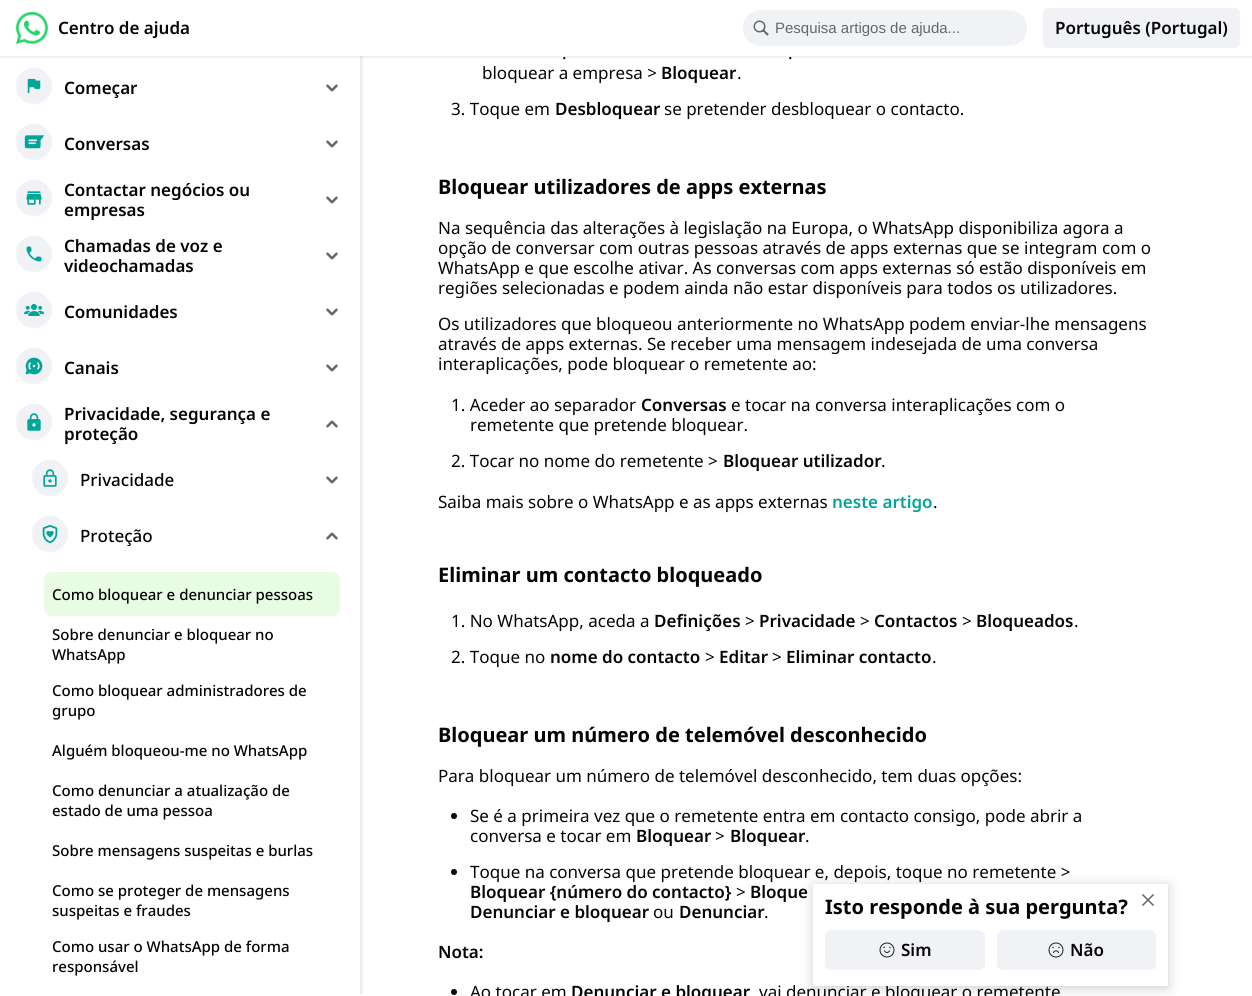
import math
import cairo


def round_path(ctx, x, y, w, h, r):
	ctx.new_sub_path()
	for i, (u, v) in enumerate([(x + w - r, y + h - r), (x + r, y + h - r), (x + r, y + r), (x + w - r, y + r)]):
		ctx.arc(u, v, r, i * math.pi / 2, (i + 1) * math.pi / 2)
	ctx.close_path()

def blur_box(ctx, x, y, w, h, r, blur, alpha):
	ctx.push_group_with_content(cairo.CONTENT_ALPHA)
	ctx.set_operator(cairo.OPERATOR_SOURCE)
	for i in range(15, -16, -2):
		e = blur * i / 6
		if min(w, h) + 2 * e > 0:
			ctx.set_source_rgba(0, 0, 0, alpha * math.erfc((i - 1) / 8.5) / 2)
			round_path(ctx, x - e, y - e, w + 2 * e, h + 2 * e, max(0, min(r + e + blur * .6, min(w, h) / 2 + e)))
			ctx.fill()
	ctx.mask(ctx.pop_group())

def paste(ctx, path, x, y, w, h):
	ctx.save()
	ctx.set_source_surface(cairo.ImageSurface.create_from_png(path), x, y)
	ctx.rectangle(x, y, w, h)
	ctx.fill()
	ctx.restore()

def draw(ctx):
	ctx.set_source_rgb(1, 1, 1)
	ctx.paint()
	ctx.set_source_rgb(0, 0, 0)
	blur_box(ctx, 0, 1, 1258, 56, 0, 2, 0.1)
	ctx.save()
	ctx.rectangle(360, 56, 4, 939)
	ctx.clip()
	blur_box(ctx, 6, 2, 356, 992, 0, 2, 0.1)
	ctx.restore()
	ctx.set_source_rgb(1, 1, 1)
	ctx.rectangle(0, 0, 1252, 56)
	ctx.fill()
	paste(ctx, 'media/1.png', 16, 12, 32, 32)
	ctx.select_font_face('Noto Sans SemiBold')
	ctx.set_font_size(17)
	ctx.set_source_rgb(0.02, 0.02, 0.02)
	ctx.move_to(58, 34)
	ctx.show_text('Centro de ajuda')
	ctx.set_source_rgb(0.941, 0.949, 0.961)
	round_path(ctx, 743, 10, 284, 36, 18)
	ctx.fill()
	paste(ctx, 'media/2.png', 753, 20, 16, 16)
	ctx.save()
	ctx.rectangle(775, 19, 242, 17)
	ctx.clip()
	ctx.select_font_face('Liberation Sans')
	ctx.set_font_size(15)
	ctx.set_source_rgb(0.396, 0.404, 0.42)
	ctx.move_to(775, 33)
	ctx.show_text('Pesquisa artigos de ajuda...')
	ctx.restore()
	round_path(ctx, 1043, 8, 197, 40, 6)
	ctx.fill()
	ctx.set_source_rgb(0.02, 0.02, 0.02)
	ctx.move_to(1055, 34)
	ctx.show_text('Português (Portugal)')
	ctx.set_source_rgb(0.941, 0.949, 0.961)
	ctx.new_path()
	ctx.arc(34, 86, 18, 0, 2 * math.pi)
	ctx.fill()
	paste(ctx, 'media/3.png', 27, 78, 14, 16)
	ctx.set_source_rgb(0.02, 0.02, 0.02)
	ctx.move_to(64, 94)
	ctx.show_text('Começar')
	paste(ctx, 'media/4.png', 326, 84, 12, 8)
	ctx.set_source_rgb(0.941, 0.949, 0.961)
	ctx.arc(34, 142, 18, 0, 2 * math.pi)
	ctx.fill()
	paste(ctx, 'media/5.png', 24, 135, 20, 14)
	ctx.set_source_rgb(0.02, 0.02, 0.02)
	ctx.move_to(64, 150)
	ctx.show_text('Conversas')
	paste(ctx, 'media/4.png', 326, 140, 12, 8)
	ctx.set_source_rgb(0.941, 0.949, 0.961)
	ctx.arc(34, 198, 18, 0, 2 * math.pi)
	ctx.fill()
	paste(ctx, 'media/6.png', 26, 191, 16, 14)
	ctx.set_source_rgb(0.02, 0.02, 0.02)
	ctx.move_to(64, 196)
	ctx.show_text('Contactar negócios ou')
	ctx.move_to(64, 216)
	ctx.show_text('empresas')
	paste(ctx, 'media/4.png', 326, 196, 12, 8)
	ctx.set_source_rgb(0.941, 0.949, 0.961)
	ctx.arc(34, 254, 18, 0, 2 * math.pi)
	ctx.fill()
	paste(ctx, 'media/7.png', 26, 246, 16, 16)
	ctx.set_source_rgb(0.02, 0.02, 0.02)
	ctx.move_to(64, 252)
	ctx.show_text('Chamadas de voz e')
	ctx.move_to(64, 272)
	ctx.show_text('videochamadas')
	paste(ctx, 'media/4.png', 326, 252, 12, 8)
	ctx.set_source_rgb(0.941, 0.949, 0.961)
	ctx.arc(34, 310, 18, 0, 2 * math.pi)
	ctx.fill()
	paste(ctx, 'media/8.png', 24, 304, 20, 12)
	ctx.set_source_rgb(0.02, 0.02, 0.02)
	ctx.move_to(64, 318)
	ctx.show_text('Comunidades')
	paste(ctx, 'media/4.png', 326, 308, 12, 8)
	ctx.set_source_rgb(0.941, 0.949, 0.961)
	ctx.arc(34, 366, 18, 0, 2 * math.pi)
	ctx.fill()
	paste(ctx, 'media/9.png', 25, 357, 18, 18)
	ctx.set_source_rgb(0.02, 0.02, 0.02)
	ctx.move_to(64, 374)
	ctx.show_text('Canais')
	paste(ctx, 'media/4.png', 326, 364, 12, 8)
	ctx.set_source_rgb(0.941, 0.949, 0.961)
	ctx.arc(34, 422, 18, 0, 2 * math.pi)
	ctx.fill()
	paste(ctx, 'media/10.png', 27, 413, 14, 18)
	ctx.set_source_rgb(0.02, 0.02, 0.02)
	ctx.move_to(64, 420)
	ctx.show_text('Privacidade, segurança e')
	ctx.move_to(64, 440)
	ctx.show_text('proteção')
	paste(ctx, 'media/11.png', 326, 420, 12, 8)
	ctx.set_source_rgb(0.941, 0.949, 0.961)
	ctx.arc(50, 478, 18, 0, 2 * math.pi)
	ctx.fill()
	paste(ctx, 'media/12.png', 43, 469, 14, 18)
	ctx.select_font_face('Noto Sans Medium')
	ctx.set_source_rgb(0.02, 0.02, 0.02)
	ctx.move_to(80, 486)
	ctx.show_text('Privacidade')
	paste(ctx, 'media/4.png', 326, 476, 12, 8)
	ctx.set_source_rgb(0.941, 0.949, 0.961)
	ctx.arc(50, 534, 18, 0, 2 * math.pi)
	ctx.fill()
	paste(ctx, 'media/13.png', 42, 525, 16, 19)
	ctx.set_source_rgb(0.02, 0.02, 0.02)
	ctx.move_to(80, 542)
	ctx.show_text('Proteção')
	paste(ctx, 'media/11.png', 326, 532, 12, 8)
	ctx.set_source_rgb(0.906, 0.988, 0.89)
	round_path(ctx, 44, 572, 296, 44, 8)
	ctx.fill()
	ctx.set_font_size(15)
	ctx.set_source_rgb(0.02, 0.02, 0.02)
	for x, y, s in [
		(52, 600, 'Como bloquear e denunciar pessoas'),
		(52, 640, 'Sobre denunciar e bloquear no'),
		(52, 660, 'WhatsApp'),
		(52, 696, 'Como bloquear administradores de'),
		(52, 716, 'grupo'),
		(52, 756, 'Alguém bloqueou-me no WhatsApp'),
		(52, 796, 'Como denunciar a atualização de'),
		(52, 816, 'estado de uma pessoa'),
		(52, 856, 'Sobre mensagens suspeitas e burlas'),
		(52, 896, 'Como se proteger de mensagens'),
		(52, 916, 'suspeitas e fraudes'),
		(52, 952, 'Como usar o WhatsApp de forma'),
		(52, 972, 'responsável'),
	]:
		ctx.move_to(x, y)
		ctx.show_text(s)
	ctx.select_font_face('Noto Sans')
	ctx.set_font_size(17)
	for x, y, s in [
		(562, 59, '.'),
		(788, 59, '.'),
		(482, 79, 'bloquear a empresa >'),
	]:
		ctx.move_to(x, y)
		ctx.show_text(s)
	ctx.select_font_face('Noto Sans SemiBold')
	ctx.move_to(661, 79)
	ctx.show_text('Bloquear')
	ctx.select_font_face('Noto Sans')
	ctx.move_to(737, 79)
	ctx.show_text('.')
	ctx.move_to(451, 115)
	ctx.show_text('3. Toque em')
	ctx.select_font_face('Noto Sans SemiBold')
	ctx.move_to(555, 115)
	ctx.show_text('Desbloquear')
	ctx.select_font_face('Noto Sans')
	ctx.move_to(664, 115)
	ctx.show_text('se pretender desbloquear o contacto.')
	ctx.select_font_face('Noto Sans', cairo.FONT_SLANT_NORMAL, cairo.FONT_WEIGHT_BOLD)
	ctx.set_font_size(20)
	ctx.move_to(438, 194)
	ctx.show_text('Bloquear utilizadores de apps externas')
	ctx.select_font_face('Noto Sans')
	ctx.set_font_size(17)
	for x, y, s in [
		(438, 234, 'Na sequência das alterações à legislação na Europa, o WhatsApp disponibiliza agora a'),
		(438, 254, 'opção de conversar com outras pessoas através de apps externas que se integram com o'),
		(438, 274, 'WhatsApp e que escolhe ativar. As conversas com apps externas só estão disponíveis em'),
		(438, 294, 'regiões selecionadas e podem ainda não estar disponíveis para todos os utilizadores.'),
		(438, 330, 'Os utilizadores que bloqueou anteriormente no WhatsApp podem enviar-lhe mensagens'),
		(438, 350, 'através de apps externas. Se receber uma mensagem indesejada de uma conversa'),
		(438, 370, 'interaplicações, pode bloquear o remetente ao:'),
		(451, 411, '1. Aceder ao separador'),
	]:
		ctx.move_to(x, y)
		ctx.show_text(s)
	ctx.select_font_face('Noto Sans SemiBold')
	ctx.move_to(641, 411)
	ctx.show_text('Conversas')
	ctx.select_font_face('Noto Sans')
	for x, y, s in [
		(731, 411, 'e tocar na conversa interaplicações com o'),
		(470, 431, 'remetente que pretende bloquear.'),
		(451, 467, '2. Tocar no nome do remetente >'),
	]:
		ctx.move_to(x, y)
		ctx.show_text(s)
	ctx.select_font_face('Noto Sans SemiBold')
	ctx.move_to(723, 467)
	ctx.show_text('Bloquear utilizador')
	ctx.select_font_face('Noto Sans')
	ctx.move_to(881, 467)
	ctx.show_text('.')
	ctx.move_to(438, 508)
	ctx.show_text('Saiba mais sobre o WhatsApp e as apps externas')
	ctx.select_font_face('Noto Sans SemiBold')
	ctx.set_source_rgb(0.008, 0.651, 0.596)
	ctx.move_to(832, 508)
	ctx.show_text('neste artigo')
	ctx.select_font_face('Noto Sans')
	ctx.set_source_rgb(0.02, 0.02, 0.02)
	ctx.move_to(933, 508)
	ctx.show_text('.')
	ctx.select_font_face('Noto Sans', cairo.FONT_SLANT_NORMAL, cairo.FONT_WEIGHT_BOLD)
	ctx.set_font_size(20)
	ctx.move_to(438, 582)
	ctx.show_text('Eliminar um contacto bloqueado')
	ctx.select_font_face('Noto Sans')
	ctx.set_font_size(17)
	ctx.move_to(451, 627)
	ctx.show_text('1. No WhatsApp, aceda a')
	ctx.select_font_face('Noto Sans SemiBold')
	ctx.move_to(654, 627)
	ctx.show_text('Definições')
	ctx.select_font_face('Noto Sans')
	ctx.move_to(745, 627)
	ctx.show_text('>')
	ctx.select_font_face('Noto Sans SemiBold')
	ctx.move_to(759, 627)
	ctx.show_text('Privacidade')
	ctx.select_font_face('Noto Sans')
	ctx.move_to(860, 627)
	ctx.show_text('>')
	ctx.select_font_face('Noto Sans SemiBold')
	ctx.move_to(874, 627)
	ctx.show_text('Contactos')
	ctx.select_font_face('Noto Sans')
	ctx.move_to(962, 627)
	ctx.show_text('>')
	ctx.select_font_face('Noto Sans SemiBold')
	ctx.move_to(976, 627)
	ctx.show_text('Bloqueados')
	ctx.select_font_face('Noto Sans')
	ctx.move_to(1074, 627)
	ctx.show_text('.')
	ctx.move_to(451, 663)
	ctx.show_text('2. Toque no')
	ctx.select_font_face('Noto Sans SemiBold')
	ctx.move_to(550, 663)
	ctx.show_text('nome do contacto')
	ctx.select_font_face('Noto Sans')
	ctx.move_to(705, 663)
	ctx.show_text('>')
	ctx.select_font_face('Noto Sans SemiBold')
	ctx.move_to(719, 663)
	ctx.show_text('Editar')
	ctx.select_font_face('Noto Sans')
	ctx.move_to(772, 663)
	ctx.show_text('>')
	ctx.select_font_face('Noto Sans SemiBold')
	ctx.move_to(786, 663)
	ctx.show_text('Eliminar contacto')
	ctx.select_font_face('Noto Sans')
	ctx.move_to(932, 663)
	ctx.show_text('.')
	ctx.select_font_face('Noto Sans', cairo.FONT_SLANT_NORMAL, cairo.FONT_WEIGHT_BOLD)
	ctx.set_font_size(20)
	ctx.move_to(438, 742)
	ctx.show_text('Bloquear um número de telemóvel desconhecido')
	ctx.select_font_face('Noto Sans')
	ctx.set_font_size(17)
	ctx.move_to(438, 782)
	ctx.show_text('Para bloquear um número de telemóvel desconhecido, tem duas opções:')
	ctx.new_path()
	ctx.arc(454, 816, 3, 0, 2 * math.pi)
	ctx.fill()
	ctx.move_to(470, 822)
	ctx.show_text('Se é a primeira vez que o remetente entra em contacto consigo, pode abrir a')
	ctx.move_to(470, 842)
	ctx.show_text('conversa e tocar em')
	ctx.select_font_face('Noto Sans SemiBold')
	ctx.move_to(636, 842)
	ctx.show_text('Bloquear')
	ctx.select_font_face('Noto Sans')
	ctx.move_to(715, 842)
	ctx.show_text('>')
	ctx.select_font_face('Noto Sans SemiBold')
	ctx.move_to(730, 842)
	ctx.show_text('Bloquear')
	ctx.select_font_face('Noto Sans')
	ctx.move_to(805, 842)
	ctx.show_text('.')
	ctx.new_path()
	ctx.arc(454, 872, 3, 0, 2 * math.pi)
	ctx.fill()
	ctx.move_to(470, 878)
	ctx.show_text('Toque na conversa que pretende bloquear e, depois, toque no remetente >')
	ctx.select_font_face('Noto Sans SemiBold')
	ctx.move_to(470, 898)
	ctx.show_text('Bloquear {número do contacto}')
	ctx.select_font_face('Noto Sans')
	ctx.move_to(736, 898)
	ctx.show_text('>')
	ctx.select_font_face('Noto Sans SemiBold')
	ctx.move_to(750, 898)
	ctx.show_text('Bloque')
	ctx.move_to(470, 918)
	ctx.show_text('Denunciar e bloquear')
	ctx.select_font_face('Noto Sans')
	ctx.move_to(653, 918)
	ctx.show_text('ou')
	ctx.select_font_face('Noto Sans SemiBold')
	ctx.move_to(679, 918)
	ctx.show_text('Denunciar')
	ctx.select_font_face('Noto Sans')
	ctx.move_to(764, 918)
	ctx.show_text('.')
	ctx.select_font_face('Noto Sans SemiBold')
	ctx.move_to(438, 958)
	ctx.show_text('Nota:')
	ctx.new_path()
	ctx.arc(454, 992, 3, 0, 2 * math.pi)
	ctx.fill()
	ctx.select_font_face('Noto Sans')
	ctx.move_to(470, 998)
	ctx.show_text('Ao tocar em')
	ctx.select_font_face('Noto Sans SemiBold')
	ctx.move_to(571, 998)
	ctx.show_text('Denunciar e bloquear')
	ctx.select_font_face('Noto Sans')
	ctx.move_to(759, 998)
	ctx.show_text('vai denunciar e bloquear o remetente')
	ctx.set_source_rgb(0, 0, 0)
	blur_box(ctx, 813, 886, 355, 102, 0, 6, 0.2)
	ctx.set_source_rgb(1, 1, 1)
	ctx.rectangle(813, 884, 355, 102)
	ctx.fill()
	ctx.select_font_face('Noto Sans', cairo.FONT_SLANT_NORMAL, cairo.FONT_WEIGHT_BOLD)
	ctx.set_font_size(20)
	ctx.set_source_rgb(0.02, 0.02, 0.02)
	ctx.move_to(825, 914)
	ctx.show_text('Isto responde à sua pergunta?')
	paste(ctx, 'media/14.png', 1142, 894, 12, 12)
	ctx.set_source_rgb(0.941, 0.949, 0.961)
	round_path(ctx, 825, 930, 160, 40, 6)
	ctx.fill()
	paste(ctx, 'media/15.png', 879, 942, 16, 16)
	ctx.select_font_face('Noto Sans SemiBold')
	ctx.set_font_size(17)
	ctx.set_source_rgb(0.02, 0.02, 0.02)
	ctx.move_to(901, 956)
	ctx.show_text('Sim')
	ctx.set_source_rgb(0.941, 0.949, 0.961)
	round_path(ctx, 997, 930, 159, 40, 6)
	ctx.fill()
	paste(ctx, 'media/16.png', 1048, 942, 16, 16)
	ctx.set_source_rgb(0.02, 0.02, 0.02)
	ctx.move_to(1070, 956)
	ctx.show_text('Não')


surface = cairo.ImageSurface(cairo.FORMAT_RGB24, 1252, 996)
ctx = cairo.Context(surface)
options = cairo.FontOptions()
options.set_hint_metrics(cairo.HINT_METRICS_OFF)
options.set_hint_style(cairo.HINT_STYLE_NONE)
ctx.set_font_options(options)
ctx.set_miter_limit(4)
draw(ctx)
surface.write_to_png('image.png')
